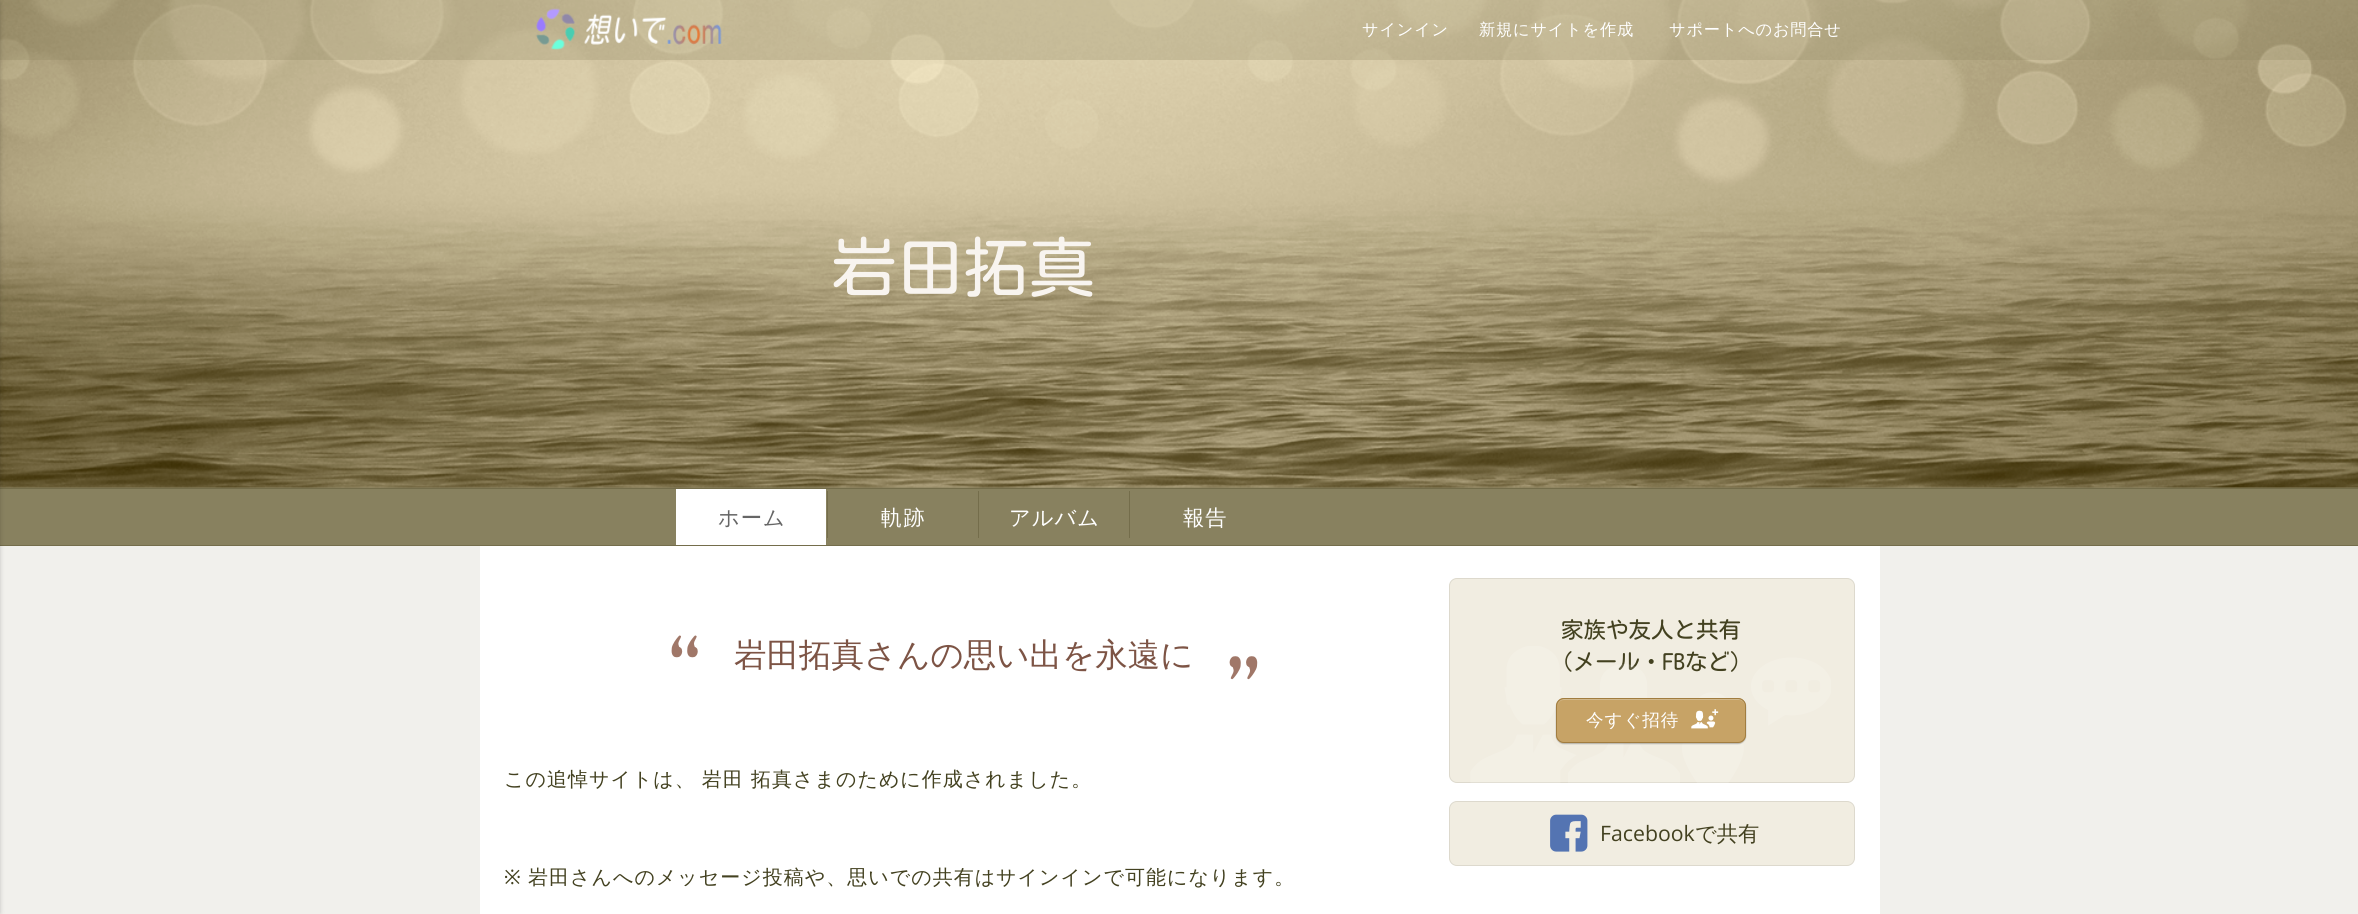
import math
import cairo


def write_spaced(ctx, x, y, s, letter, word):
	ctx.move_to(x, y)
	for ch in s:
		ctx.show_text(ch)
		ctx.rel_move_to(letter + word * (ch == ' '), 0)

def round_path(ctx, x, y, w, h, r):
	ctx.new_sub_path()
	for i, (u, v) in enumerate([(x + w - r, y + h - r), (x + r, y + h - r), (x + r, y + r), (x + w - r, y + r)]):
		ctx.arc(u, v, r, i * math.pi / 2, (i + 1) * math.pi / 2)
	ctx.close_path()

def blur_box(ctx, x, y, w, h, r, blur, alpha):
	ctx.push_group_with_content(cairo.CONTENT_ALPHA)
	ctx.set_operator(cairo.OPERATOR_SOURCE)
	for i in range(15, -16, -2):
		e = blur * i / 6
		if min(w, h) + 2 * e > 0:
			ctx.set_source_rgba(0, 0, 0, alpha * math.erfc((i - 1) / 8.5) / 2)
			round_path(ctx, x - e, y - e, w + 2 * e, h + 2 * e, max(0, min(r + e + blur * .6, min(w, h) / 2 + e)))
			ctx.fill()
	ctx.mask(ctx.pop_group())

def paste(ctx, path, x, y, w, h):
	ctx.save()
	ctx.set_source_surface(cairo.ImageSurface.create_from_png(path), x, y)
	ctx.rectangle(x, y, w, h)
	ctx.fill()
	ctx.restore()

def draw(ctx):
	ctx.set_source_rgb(0.945, 0.941, 0.925)
	ctx.paint()
	ctx.set_source_rgb(0.533, 0.506, 0.373)
	ctx.rectangle(0, 487, 2358, 1)
	ctx.fill()
	paste(ctx, 'media/2.png', 0, 0, 2358, 488)
	ctx.set_source_rgba(0.533, 0.506, 0.373, 0.25)
	ctx.rectangle(0, 59, 2358, 1)
	ctx.fill()
	ctx.rectangle(0, 0, 2358, 59)
	ctx.fill()
	ctx.set_source_rgb(0.533, 0.506, 0.373)
	ctx.rectangle(0, 489, 2358, 56)
	ctx.fill()
	ctx.set_source_rgb(0.455, 0.427, 0.294)
	ctx.rectangle(0, 488, 2358, 1)
	ctx.rectangle(0, 545, 2358, 1)
	ctx.fill()
	ctx.set_source_rgb(0, 0, 0)
	blur_box(ctx, -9, 3, 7, 910, 0, 3, 0.4)
	paste(ctx, 'media/1.png', 536, 8, 186, 42)
	ctx.select_font_face('WenQuanYi Zen Hei Medium')
	ctx.set_font_size(16.25)
	ctx.set_source_rgb(1, 1, 1)
	for x, y, s in [
		(1362, 35, 'サインイン'),
		(1479, 35, '新規にサイトを作成'),
		(1669, 35, 'サポートへのお問合せ'),
	]:
		write_spaced(ctx, x, y, s, 0.75, 0)
	ctx.select_font_face('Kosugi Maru')
	ctx.set_font_size(66)
	ctx.set_source_rgb(0.969, 0.957, 0.937)
	ctx.move_to(831, 292)
	ctx.show_text('岩田拓真')
	ctx.set_source_rgb(1, 1, 1)
	ctx.rectangle(676, 489, 150, 56)
	ctx.fill()
	ctx.select_font_face('WenQuanYi Zen Hei Medium')
	ctx.set_font_size(21.25)
	ctx.set_source_rgb(0.4, 0.4, 0.4)
	write_spaced(ctx, 718, 525, 'ホーム', 1, 0)
	ctx.set_source_rgb(0.455, 0.427, 0.294)
	ctx.rectangle(827, 491, 1, 47)
	ctx.fill()
	ctx.set_source_rgb(1, 1, 1)
	write_spaced(ctx, 881, 525, '軌跡', 1, 0)
	ctx.set_source_rgb(0.455, 0.427, 0.294)
	ctx.rectangle(978, 491, 1, 47)
	ctx.fill()
	ctx.set_source_rgb(1, 1, 1)
	write_spaced(ctx, 1009, 525, 'アルバム', 1, 0)
	ctx.set_source_rgb(0.455, 0.427, 0.294)
	ctx.rectangle(1129, 491, 1, 47)
	ctx.fill()
	ctx.set_source_rgb(1, 1, 1)
	write_spaced(ctx, 1183, 525, '報告', 1, 0)
	ctx.rectangle(480, 546, 1400, 368)
	ctx.fill()
	paste(ctx, 'media/3.png', 671, 635, 27, 23)
	ctx.set_font_size(32.5)
	ctx.set_source_rgb(0.49, 0.329, 0.271)
	ctx.move_to(734, 666)
	ctx.show_text('岩田拓真さんの思い出を永遠に')
	paste(ctx, 'media/4.png', 1229, 656, 29, 24)
	ctx.set_font_size(20)
	ctx.set_source_rgb(0.263, 0.255, 0.125)
	write_spaced(ctx, 504, 786, 'この追悼サイトは、 岩田', 1, -1)
	write_spaced(ctx, 751, 786, '拓真さまのために作成されました。', 1, 0)
	ctx.select_font_face('Noto Sans')
	write_spaced(ctx, 504, 884, '※', 1, 0)
	ctx.select_font_face('WenQuanYi Zen Hei Medium')
	write_spaced(ctx, 528, 884, '岩田さんへのメッセージ投稿や、思いでの共有はサインインで可能になります。', 1, 0)
	ctx.set_source_rgb(0.945, 0.929, 0.882)
	round_path(ctx, 1449.5, 578.5, 405, 204, 7.5)
	ctx.fill_preserve()
	ctx.set_source_rgb(0.867, 0.851, 0.804)
	ctx.set_line_width(1)
	ctx.stroke()
	ctx.select_font_face('Kosugi Maru')
	ctx.set_font_size(22.5)
	ctx.set_source_rgb(0.263, 0.255, 0.125)
	ctx.move_to(1561, 638)
	ctx.show_text('家族や友人と共有')
	ctx.move_to(1550, 670)
	ctx.show_text('（メール・FBなど）')
	paste(ctx, 'media/5.png', 1470, 646, 361, 137)
	ctx.set_source_rgb(0, 0, 0)
	blur_box(ctx, 1556, 699, 190, 45, 8, 0.5, 0.25)
	ctx.set_source_rgb(0.78, 0.639, 0.4)
	round_path(ctx, 1556, 698, 190, 45, 8)
	ctx.fill()
	ctx.set_source_rgb(0.824, 0.725, 0.549)
	ctx.new_path()
	ctx.move_to(1564, 700)
	ctx.line_to(1739, 700)
	ctx.curve_to(1742, 700, 1745, 703, 1745, 706)
	ctx.line_to(1745, 705)
	ctx.curve_to(1745, 702, 1742, 699, 1739, 699)
	ctx.line_to(1564, 699)
	ctx.curve_to(1561, 699, 1558, 702, 1558, 705)
	ctx.line_to(1558, 706)
	ctx.curve_to(1558, 703, 1560, 700, 1564, 700)
	ctx.close_path()
	ctx.fill()
	round_path(ctx, 1556.5, 698.5, 189, 44, 7.5)
	ctx.set_source_rgb(0.631, 0.49, 0.251)
	ctx.stroke()
	ctx.select_font_face('WenQuanYi Zen Hei Medium')
	ctx.set_font_size(17.5)
	ctx.set_source_rgb(1, 1, 1)
	write_spaced(ctx, 1586, 726, '今すぐ招待', 1, 0)
	paste(ctx, 'media/6.png', 1691, 709, 28, 20)
	ctx.set_source_rgb(0.945, 0.929, 0.882)
	round_path(ctx, 1449.5, 801.5, 405, 64, 7.5)
	ctx.fill_preserve()
	ctx.set_source_rgb(0.867, 0.851, 0.804)
	ctx.stroke()
	paste(ctx, 'media/7.png', 1550, 814, 38, 38)
	ctx.select_font_face('Open Sans')
	ctx.set_font_size(21.25)
	ctx.set_source_rgb(0.263, 0.255, 0.125)
	ctx.move_to(1600, 841)
	ctx.show_text('Facebook')
	ctx.select_font_face('WenQuanYi Zen Hei Medium')
	ctx.move_to(1695, 841)
	ctx.show_text('で共有')


surface = cairo.ImageSurface(cairo.FORMAT_RGB24, 2358, 914)
ctx = cairo.Context(surface)
options = cairo.FontOptions()
options.set_hint_metrics(cairo.HINT_METRICS_OFF)
options.set_hint_style(cairo.HINT_STYLE_NONE)
ctx.set_font_options(options)
ctx.set_miter_limit(4)
draw(ctx)
surface.write_to_png('image.png')
